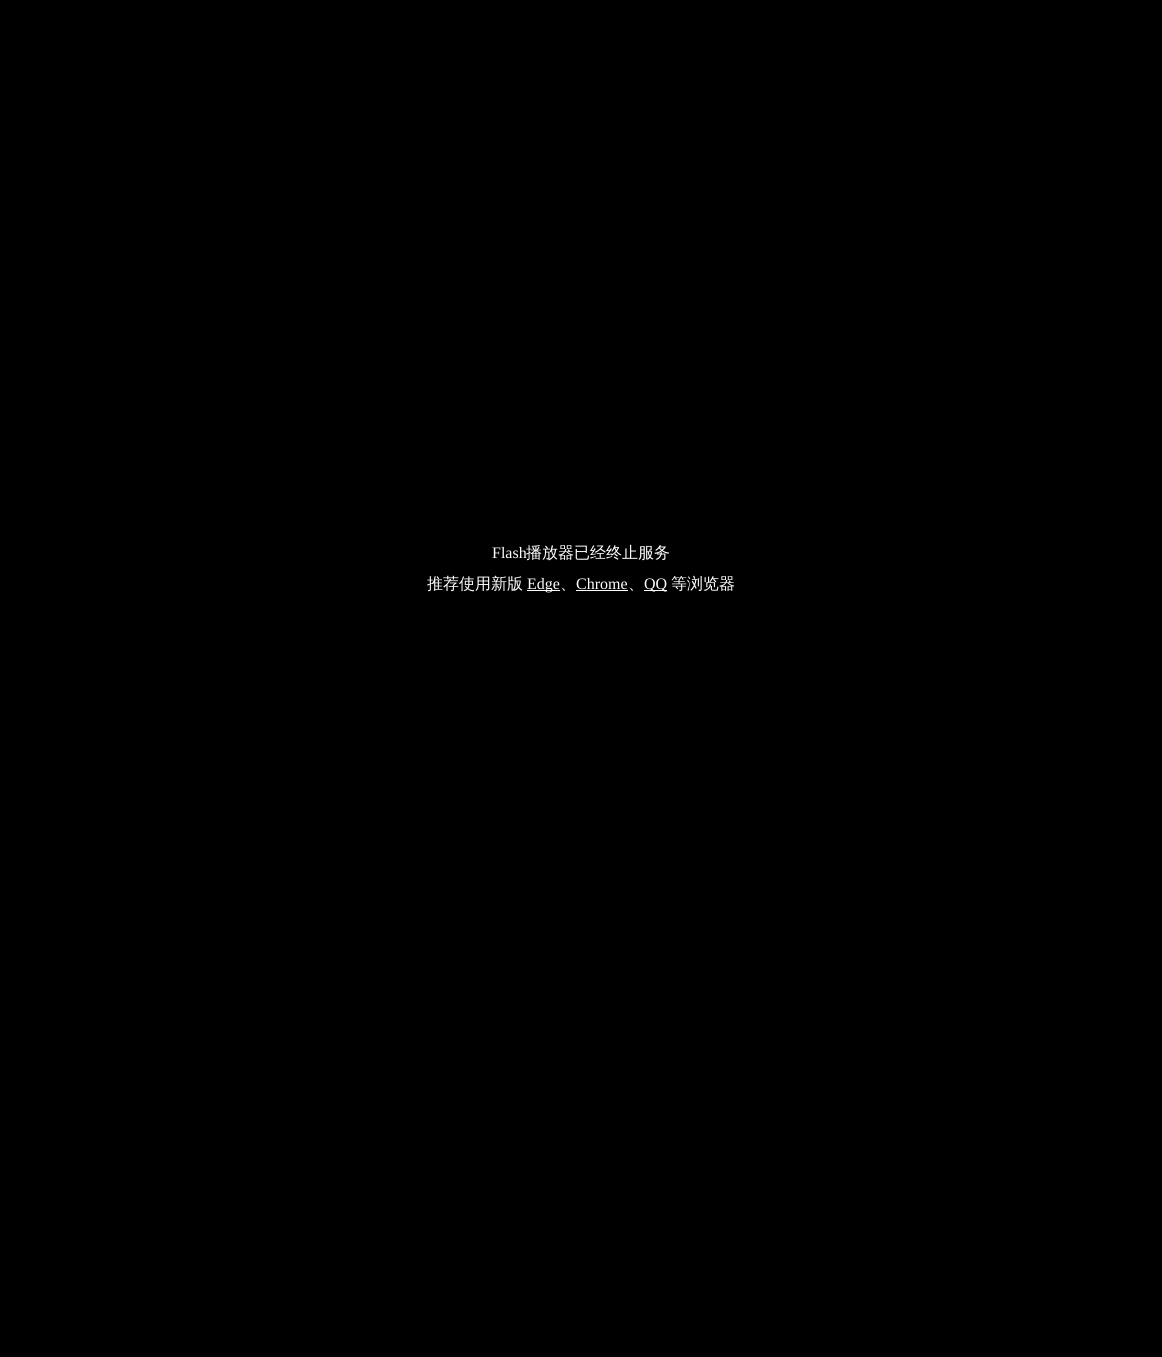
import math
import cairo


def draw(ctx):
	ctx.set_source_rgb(0, 0, 0)
	ctx.paint()
	ctx.select_font_face('Liberation Serif')
	ctx.set_font_size(16)
	ctx.set_source_rgb(1, 1, 1)
	ctx.move_to(492, 558)
	ctx.show_text('Flash')
	ctx.select_font_face('WenQuanYi Zen Hei Medium')
	ctx.move_to(526, 558)
	ctx.show_text('播放器已经终止服务')
	ctx.move_to(427, 589)
	ctx.show_text('推荐使用新版')
	ctx.rectangle(527, 590, 33, 1)
	ctx.fill()
	ctx.select_font_face('Liberation Serif')
	ctx.move_to(527, 589)
	ctx.show_text('Edge')
	ctx.select_font_face('WenQuanYi Zen Hei Medium')
	ctx.move_to(560, 589)
	ctx.show_text('、')
	ctx.select_font_face('Liberation Serif')
	ctx.move_to(576, 589)
	ctx.show_text('Chrome')
	ctx.rectangle(576, 590, 52, 1)
	ctx.fill()
	ctx.select_font_face('WenQuanYi Zen Hei Medium')
	ctx.move_to(628, 589)
	ctx.show_text('、')
	ctx.rectangle(644, 590, 23, 1)
	ctx.fill()
	ctx.select_font_face('Liberation Serif')
	ctx.move_to(644, 589)
	ctx.show_text('QQ')
	ctx.select_font_face('WenQuanYi Zen Hei Medium')
	ctx.move_to(671, 589)
	ctx.show_text('等浏览器')


surface = cairo.ImageSurface(cairo.FORMAT_RGB24, 1162, 1357)
ctx = cairo.Context(surface)
options = cairo.FontOptions()
options.set_hint_metrics(cairo.HINT_METRICS_OFF)
options.set_hint_style(cairo.HINT_STYLE_NONE)
ctx.set_font_options(options)
ctx.set_miter_limit(4)
draw(ctx)
surface.write_to_png('image.png')
